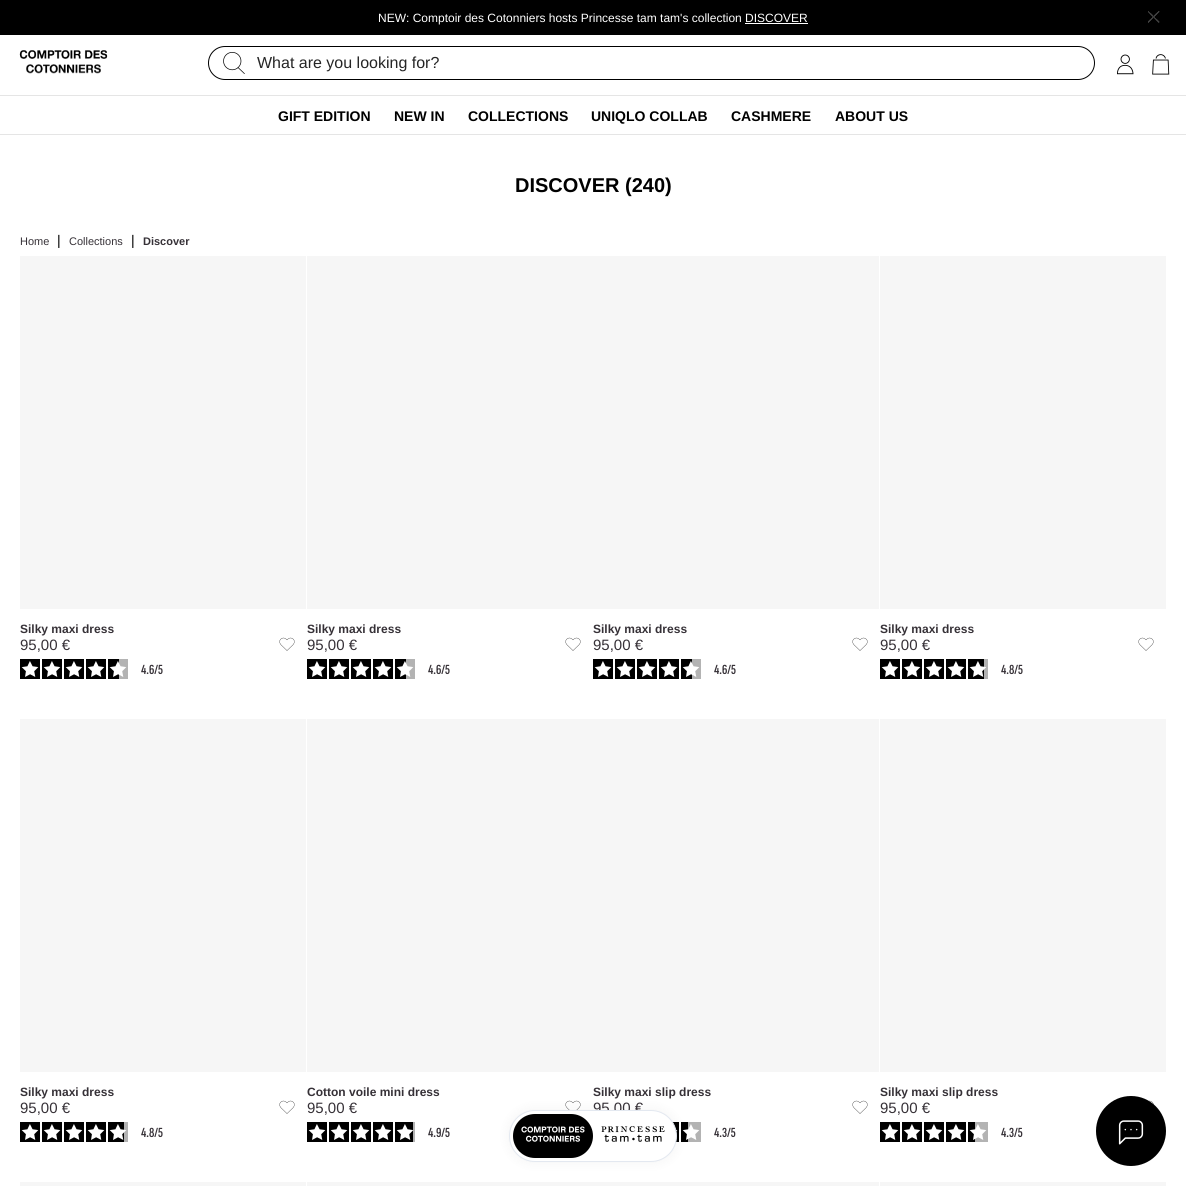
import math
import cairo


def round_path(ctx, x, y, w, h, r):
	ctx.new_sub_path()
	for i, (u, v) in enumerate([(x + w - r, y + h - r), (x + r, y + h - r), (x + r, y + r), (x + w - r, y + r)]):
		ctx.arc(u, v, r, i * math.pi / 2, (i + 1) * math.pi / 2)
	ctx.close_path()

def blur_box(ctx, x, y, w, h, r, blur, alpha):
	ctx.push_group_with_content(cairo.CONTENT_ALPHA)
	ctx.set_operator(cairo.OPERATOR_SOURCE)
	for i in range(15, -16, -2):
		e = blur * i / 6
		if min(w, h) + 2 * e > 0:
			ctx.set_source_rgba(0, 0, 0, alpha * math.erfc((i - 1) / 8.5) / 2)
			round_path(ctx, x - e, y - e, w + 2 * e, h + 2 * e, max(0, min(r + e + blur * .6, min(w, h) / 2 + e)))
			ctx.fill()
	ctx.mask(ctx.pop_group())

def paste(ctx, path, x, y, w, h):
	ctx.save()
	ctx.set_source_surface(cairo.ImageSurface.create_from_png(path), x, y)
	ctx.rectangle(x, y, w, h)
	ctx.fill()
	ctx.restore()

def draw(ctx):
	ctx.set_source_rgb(1, 1, 1)
	ctx.paint()
	ctx.set_source_rgb(0, 0, 0)
	ctx.rectangle(0, 0, 1186, 35)
	ctx.fill()
	ctx.select_font_face('Liberation Sans')
	ctx.set_font_size(12)
	ctx.set_source_rgb(1, 1, 1)
	ctx.move_to(378, 22)
	ctx.show_text('NEW: Comptoir des Cotonniers hosts Princesse tam tam\'s collection DISCOVER')
	ctx.rectangle(745, 23, 63, 1)
	ctx.fill()
	paste(ctx, 'media/1.png', 1148, 11, 12, 12)
	paste(ctx, 'media/2.png', 1148, 11, 11, 12)
	paste(ctx, 'media/3.png', 19, 50, 89, 24)
	round_path(ctx, 208.5, 46.5, 886, 33, 16.5)
	ctx.set_source_rgb(0, 0, 0)
	ctx.set_line_width(1)
	ctx.stroke()
	paste(ctx, 'media/4.png', 223, 52, 22, 22)
	ctx.set_font_size(16)
	ctx.set_source_rgb(0.145, 0.145, 0.145)
	ctx.move_to(257, 68)
	ctx.show_text('What are you looking for?')
	paste(ctx, 'media/5.png', 1117, 54, 17, 21)
	paste(ctx, 'media/6.png', 1152, 54, 18, 21)
	paste(ctx, 'media/13.png', 565, 1100, 16, 10)
	ctx.set_source_rgb(0, 0, 0)
	ctx.rectangle(672, 1122, 7, 20)
	ctx.fill()
	paste(ctx, 'media/15.png', 676, 1129, 2, 3)
	ctx.rectangle(681, 1122, 7, 20)
	ctx.fill()
	ctx.set_source_rgb(0.702, 0.702, 0.702)
	ctx.rectangle(688, 1122, 13, 20)
	ctx.fill()
	paste(ctx, 'media/16.png', 682, 1124, 18, 16)
	ctx.set_source_rgb(0, 0, 0)
	blur_box(ctx, 509, 1110, 168, 52, 26, 6, 0.05)
	ctx.set_font_size(15)
	ctx.set_source_rgb(0.212, 0.192, 0.216)
	ctx.move_to(593, 1113)
	ctx.show_text('95,00 €')
	ctx.set_source_rgb(1, 1, 1)
	round_path(ctx, 509.5, 1110.5, 167, 51, 25.5)
	ctx.fill_preserve()
	ctx.set_source_rgb(0.89, 0.91, 0.941)
	ctx.stroke()
	ctx.set_source_rgb(0, 0, 0)
	round_path(ctx, 513, 1114, 80, 44, 22)
	ctx.fill()
	paste(ctx, 'media/7.png', 521, 1126, 64, 16)
	paste(ctx, 'media/8.png', 601, 1126, 64, 16)
	ctx.set_source_rgb(0.898, 0.898, 0.898)
	ctx.rectangle(0, 95, 1186, 1)
	ctx.fill()
	ctx.rectangle(0, 134, 1186, 1)
	ctx.fill()
	ctx.select_font_face('Liberation Sans', cairo.FONT_SLANT_NORMAL, cairo.FONT_WEIGHT_BOLD)
	ctx.set_font_size(14)
	ctx.set_source_rgb(0, 0, 0)
	for x, y, s in [
		(278, 121, 'GIFT EDITION'),
		(394, 121, 'NEW IN'),
		(468, 121, 'COLLECTIONS'),
		(591, 121, 'UNIQLO COLLAB'),
		(731, 121, 'CASHMERE'),
		(835, 121, 'ABOUT US'),
	]:
		ctx.move_to(x, y)
		ctx.show_text(s)
	ctx.set_font_size(20)
	ctx.move_to(515, 192)
	ctx.show_text('DISCOVER (240)')
	ctx.select_font_face('Liberation Sans')
	ctx.set_font_size(11)
	ctx.set_source_rgb(0.212, 0.192, 0.216)
	ctx.move_to(20, 245)
	ctx.show_text('Home')
	ctx.set_font_size(14)
	ctx.set_source_rgb(0, 0, 0)
	ctx.move_to(57, 245)
	ctx.show_text('|')
	ctx.set_font_size(11)
	ctx.set_source_rgb(0.212, 0.192, 0.216)
	ctx.move_to(69, 245)
	ctx.show_text('Collections')
	ctx.set_font_size(14)
	ctx.set_source_rgb(0, 0, 0)
	ctx.move_to(131, 245)
	ctx.show_text('|')
	ctx.select_font_face('Liberation Sans', cairo.FONT_SLANT_NORMAL, cairo.FONT_WEIGHT_BOLD)
	ctx.set_font_size(11)
	ctx.set_source_rgb(0.212, 0.192, 0.216)
	ctx.move_to(143, 245)
	ctx.show_text('Discover')
	ctx.set_source_rgb(0.961, 0.961, 0.961)
	ctx.rectangle(20, 256, 286, 353)
	ctx.fill()
	ctx.set_font_size(12)
	ctx.set_source_rgb(0.212, 0.192, 0.216)
	ctx.move_to(20, 633)
	ctx.show_text('Silky maxi dress')
	ctx.select_font_face('Liberation Sans')
	ctx.set_font_size(15)
	ctx.move_to(20, 650)
	ctx.show_text('95,00 €')
	paste(ctx, 'media/9.png', 279, 637, 16, 14)
	ctx.set_source_rgb(0, 0, 0)
	ctx.rectangle(20, 659, 20, 20)
	ctx.fill()
	paste(ctx, 'media/10.png', 21, 661, 18, 16)
	ctx.rectangle(42, 659, 20, 20)
	ctx.fill()
	paste(ctx, 'media/10.png', 43, 661, 18, 16)
	ctx.rectangle(64, 659, 20, 20)
	ctx.fill()
	paste(ctx, 'media/10.png', 65, 661, 18, 16)
	ctx.rectangle(86, 659, 20, 20)
	ctx.fill()
	paste(ctx, 'media/10.png', 87, 661, 18, 16)
	ctx.rectangle(108, 659, 11, 20)
	ctx.fill()
	ctx.set_source_rgb(0.702, 0.702, 0.702)
	ctx.rectangle(119, 659, 9, 20)
	ctx.fill()
	paste(ctx, 'media/11.png', 109, 661, 18, 16)
	ctx.select_font_face('Sofia Sans Extra Condensed SemiBold')
	ctx.set_font_size(14)
	ctx.set_source_rgb(0.212, 0.192, 0.216)
	ctx.move_to(141, 674)
	ctx.show_text('4.6/5')
	ctx.set_source_rgb(0.961, 0.961, 0.961)
	ctx.rectangle(307, 256, 572, 353)
	ctx.fill()
	ctx.select_font_face('Liberation Sans', cairo.FONT_SLANT_NORMAL, cairo.FONT_WEIGHT_BOLD)
	ctx.set_font_size(12)
	ctx.set_source_rgb(0.212, 0.192, 0.216)
	ctx.move_to(307, 633)
	ctx.show_text('Silky maxi dress')
	ctx.select_font_face('Liberation Sans')
	ctx.set_font_size(15)
	ctx.move_to(307, 650)
	ctx.show_text('95,00 €')
	paste(ctx, 'media/9.png', 565, 637, 16, 14)
	ctx.set_source_rgb(0, 0, 0)
	ctx.rectangle(307, 659, 20, 20)
	ctx.fill()
	paste(ctx, 'media/10.png', 308, 661, 18, 16)
	ctx.rectangle(329, 659, 20, 20)
	ctx.fill()
	paste(ctx, 'media/10.png', 330, 661, 18, 16)
	ctx.rectangle(351, 659, 20, 20)
	ctx.fill()
	paste(ctx, 'media/10.png', 352, 661, 18, 16)
	ctx.rectangle(373, 659, 20, 20)
	ctx.fill()
	paste(ctx, 'media/10.png', 374, 661, 18, 16)
	ctx.rectangle(395, 659, 11, 20)
	ctx.fill()
	ctx.set_source_rgb(0.702, 0.702, 0.702)
	ctx.rectangle(406, 659, 9, 20)
	ctx.fill()
	paste(ctx, 'media/11.png', 396, 661, 18, 16)
	ctx.select_font_face('Sofia Sans Extra Condensed SemiBold')
	ctx.set_font_size(14)
	ctx.set_source_rgb(0.212, 0.192, 0.216)
	ctx.move_to(428, 674)
	ctx.show_text('4.6/5')
	ctx.select_font_face('Liberation Sans', cairo.FONT_SLANT_NORMAL, cairo.FONT_WEIGHT_BOLD)
	ctx.set_font_size(12)
	ctx.move_to(593, 633)
	ctx.show_text('Silky maxi dress')
	ctx.select_font_face('Liberation Sans')
	ctx.set_font_size(15)
	ctx.move_to(593, 650)
	ctx.show_text('95,00 €')
	paste(ctx, 'media/9.png', 852, 637, 16, 14)
	ctx.set_source_rgb(0, 0, 0)
	ctx.rectangle(593, 659, 20, 20)
	ctx.fill()
	paste(ctx, 'media/10.png', 594, 661, 18, 16)
	ctx.rectangle(615, 659, 20, 20)
	ctx.fill()
	paste(ctx, 'media/10.png', 616, 661, 18, 16)
	ctx.rectangle(637, 659, 20, 20)
	ctx.fill()
	paste(ctx, 'media/10.png', 638, 661, 18, 16)
	ctx.rectangle(659, 659, 20, 20)
	ctx.fill()
	paste(ctx, 'media/10.png', 660, 661, 18, 16)
	ctx.rectangle(681, 659, 11, 20)
	ctx.fill()
	ctx.set_source_rgb(0.702, 0.702, 0.702)
	ctx.rectangle(692, 659, 9, 20)
	ctx.fill()
	paste(ctx, 'media/11.png', 682, 661, 18, 16)
	ctx.select_font_face('Sofia Sans Extra Condensed SemiBold')
	ctx.set_font_size(14)
	ctx.set_source_rgb(0.212, 0.192, 0.216)
	ctx.move_to(714, 674)
	ctx.show_text('4.6/5')
	ctx.set_source_rgb(0.961, 0.961, 0.961)
	ctx.rectangle(880, 256, 286, 353)
	ctx.fill()
	ctx.select_font_face('Liberation Sans', cairo.FONT_SLANT_NORMAL, cairo.FONT_WEIGHT_BOLD)
	ctx.set_font_size(12)
	ctx.set_source_rgb(0.212, 0.192, 0.216)
	ctx.move_to(880, 633)
	ctx.show_text('Silky maxi dress')
	ctx.select_font_face('Liberation Sans')
	ctx.set_font_size(15)
	ctx.move_to(880, 650)
	ctx.show_text('95,00 €')
	paste(ctx, 'media/9.png', 1138, 637, 16, 14)
	ctx.set_source_rgb(0, 0, 0)
	ctx.rectangle(880, 659, 20, 20)
	ctx.fill()
	paste(ctx, 'media/10.png', 881, 661, 18, 16)
	ctx.rectangle(902, 659, 20, 20)
	ctx.fill()
	paste(ctx, 'media/10.png', 903, 661, 18, 16)
	ctx.rectangle(924, 659, 20, 20)
	ctx.fill()
	paste(ctx, 'media/10.png', 925, 661, 18, 16)
	ctx.rectangle(946, 659, 20, 20)
	ctx.fill()
	paste(ctx, 'media/10.png', 947, 661, 18, 16)
	ctx.rectangle(968, 659, 16, 20)
	ctx.fill()
	ctx.set_source_rgb(0.702, 0.702, 0.702)
	ctx.rectangle(984, 659, 4, 20)
	ctx.fill()
	paste(ctx, 'media/12.png', 969, 661, 18, 16)
	ctx.select_font_face('Sofia Sans Extra Condensed SemiBold')
	ctx.set_font_size(14)
	ctx.set_source_rgb(0.212, 0.192, 0.216)
	ctx.move_to(1001, 674)
	ctx.show_text('4.8/5')
	ctx.set_source_rgb(0.961, 0.961, 0.961)
	ctx.rectangle(20, 719, 286, 353)
	ctx.fill()
	ctx.select_font_face('Liberation Sans', cairo.FONT_SLANT_NORMAL, cairo.FONT_WEIGHT_BOLD)
	ctx.set_font_size(12)
	ctx.set_source_rgb(0.212, 0.192, 0.216)
	ctx.move_to(20, 1096)
	ctx.show_text('Silky maxi dress')
	ctx.select_font_face('Liberation Sans')
	ctx.set_font_size(15)
	ctx.move_to(20, 1113)
	ctx.show_text('95,00 €')
	paste(ctx, 'media/9.png', 279, 1100, 16, 14)
	ctx.set_source_rgb(0, 0, 0)
	ctx.rectangle(20, 1122, 20, 20)
	ctx.fill()
	paste(ctx, 'media/10.png', 21, 1124, 18, 16)
	ctx.rectangle(42, 1122, 20, 20)
	ctx.fill()
	paste(ctx, 'media/10.png', 43, 1124, 18, 16)
	ctx.rectangle(64, 1122, 20, 20)
	ctx.fill()
	paste(ctx, 'media/10.png', 65, 1124, 18, 16)
	ctx.rectangle(86, 1122, 20, 20)
	ctx.fill()
	paste(ctx, 'media/10.png', 87, 1124, 18, 16)
	ctx.rectangle(108, 1122, 16, 20)
	ctx.fill()
	ctx.set_source_rgb(0.702, 0.702, 0.702)
	ctx.rectangle(124, 1122, 4, 20)
	ctx.fill()
	paste(ctx, 'media/12.png', 109, 1124, 18, 16)
	ctx.select_font_face('Sofia Sans Extra Condensed SemiBold')
	ctx.set_font_size(14)
	ctx.set_source_rgb(0.212, 0.192, 0.216)
	ctx.move_to(141, 1137)
	ctx.show_text('4.8/5')
	ctx.set_source_rgb(0.961, 0.961, 0.961)
	ctx.rectangle(307, 719, 572, 353)
	ctx.fill()
	ctx.select_font_face('Liberation Sans', cairo.FONT_SLANT_NORMAL, cairo.FONT_WEIGHT_BOLD)
	ctx.set_font_size(12)
	ctx.set_source_rgb(0.212, 0.192, 0.216)
	ctx.move_to(307, 1096)
	ctx.show_text('Cotton voile mini dress')
	ctx.select_font_face('Liberation Sans')
	ctx.set_font_size(15)
	ctx.move_to(307, 1113)
	ctx.show_text('95,00 €')
	ctx.set_source_rgb(0, 0, 0)
	ctx.rectangle(307, 1122, 20, 20)
	ctx.fill()
	paste(ctx, 'media/10.png', 308, 1124, 18, 16)
	ctx.rectangle(329, 1122, 20, 20)
	ctx.fill()
	paste(ctx, 'media/10.png', 330, 1124, 18, 16)
	ctx.rectangle(351, 1122, 20, 20)
	ctx.fill()
	paste(ctx, 'media/10.png', 352, 1124, 18, 16)
	ctx.rectangle(373, 1122, 20, 20)
	ctx.fill()
	paste(ctx, 'media/10.png', 374, 1124, 18, 16)
	ctx.rectangle(395, 1122, 18, 20)
	ctx.fill()
	ctx.set_source_rgb(0.702, 0.702, 0.702)
	ctx.rectangle(413, 1122, 2, 20)
	ctx.fill()
	paste(ctx, 'media/14.png', 396, 1124, 18, 16)
	ctx.select_font_face('Sofia Sans Extra Condensed SemiBold')
	ctx.set_font_size(14)
	ctx.set_source_rgb(0.212, 0.192, 0.216)
	ctx.move_to(428, 1137)
	ctx.show_text('4.9/5')
	ctx.select_font_face('Liberation Sans', cairo.FONT_SLANT_NORMAL, cairo.FONT_WEIGHT_BOLD)
	ctx.set_font_size(12)
	ctx.move_to(593, 1096)
	ctx.show_text('Silky maxi slip dress')
	paste(ctx, 'media/9.png', 852, 1100, 16, 14)
	ctx.select_font_face('Sofia Sans Extra Condensed SemiBold')
	ctx.set_font_size(14)
	ctx.move_to(714, 1137)
	ctx.show_text('4.3/5')
	ctx.set_source_rgb(0.961, 0.961, 0.961)
	ctx.rectangle(880, 719, 286, 353)
	ctx.fill()
	ctx.select_font_face('Liberation Sans', cairo.FONT_SLANT_NORMAL, cairo.FONT_WEIGHT_BOLD)
	ctx.set_font_size(12)
	ctx.set_source_rgb(0.212, 0.192, 0.216)
	ctx.move_to(880, 1096)
	ctx.show_text('Silky maxi slip dress')
	ctx.select_font_face('Liberation Sans')
	ctx.set_font_size(15)
	ctx.move_to(880, 1113)
	ctx.show_text('95,00 €')
	paste(ctx, 'media/17.png', 1148, 1100, 6, 5)
	ctx.set_source_rgb(0, 0, 0)
	ctx.rectangle(880, 1122, 20, 20)
	ctx.fill()
	paste(ctx, 'media/10.png', 881, 1124, 18, 16)
	ctx.rectangle(902, 1122, 20, 20)
	ctx.fill()
	paste(ctx, 'media/10.png', 903, 1124, 18, 16)
	ctx.rectangle(924, 1122, 20, 20)
	ctx.fill()
	paste(ctx, 'media/10.png', 925, 1124, 18, 16)
	ctx.rectangle(946, 1122, 20, 20)
	ctx.fill()
	paste(ctx, 'media/10.png', 947, 1124, 18, 16)
	ctx.rectangle(968, 1122, 7, 20)
	ctx.fill()
	ctx.set_source_rgb(0.702, 0.702, 0.702)
	ctx.rectangle(975, 1122, 13, 20)
	ctx.fill()
	paste(ctx, 'media/16.png', 969, 1124, 18, 16)
	ctx.select_font_face('Sofia Sans Extra Condensed SemiBold')
	ctx.set_font_size(14)
	ctx.set_source_rgb(0.212, 0.192, 0.216)
	ctx.move_to(1001, 1137)
	ctx.show_text('4.3/5')
	ctx.set_source_rgb(0.961, 0.961, 0.961)
	ctx.rectangle(20, 1182, 286, 4)
	ctx.rectangle(307, 1182, 572, 4)
	ctx.rectangle(880, 1182, 286, 4)
	ctx.fill()
	ctx.set_source_rgb(0, 0, 0)
	ctx.arc(1131, 1131, 35, 0, 2 * math.pi)
	ctx.fill()
	paste(ctx, 'media/18.png', 1118, 1120, 26, 25)


surface = cairo.ImageSurface(cairo.FORMAT_RGB24, 1186, 1186)
ctx = cairo.Context(surface)
options = cairo.FontOptions()
options.set_hint_metrics(cairo.HINT_METRICS_OFF)
options.set_hint_style(cairo.HINT_STYLE_NONE)
ctx.set_font_options(options)
ctx.set_miter_limit(4)
draw(ctx)
surface.write_to_png('image.png')
